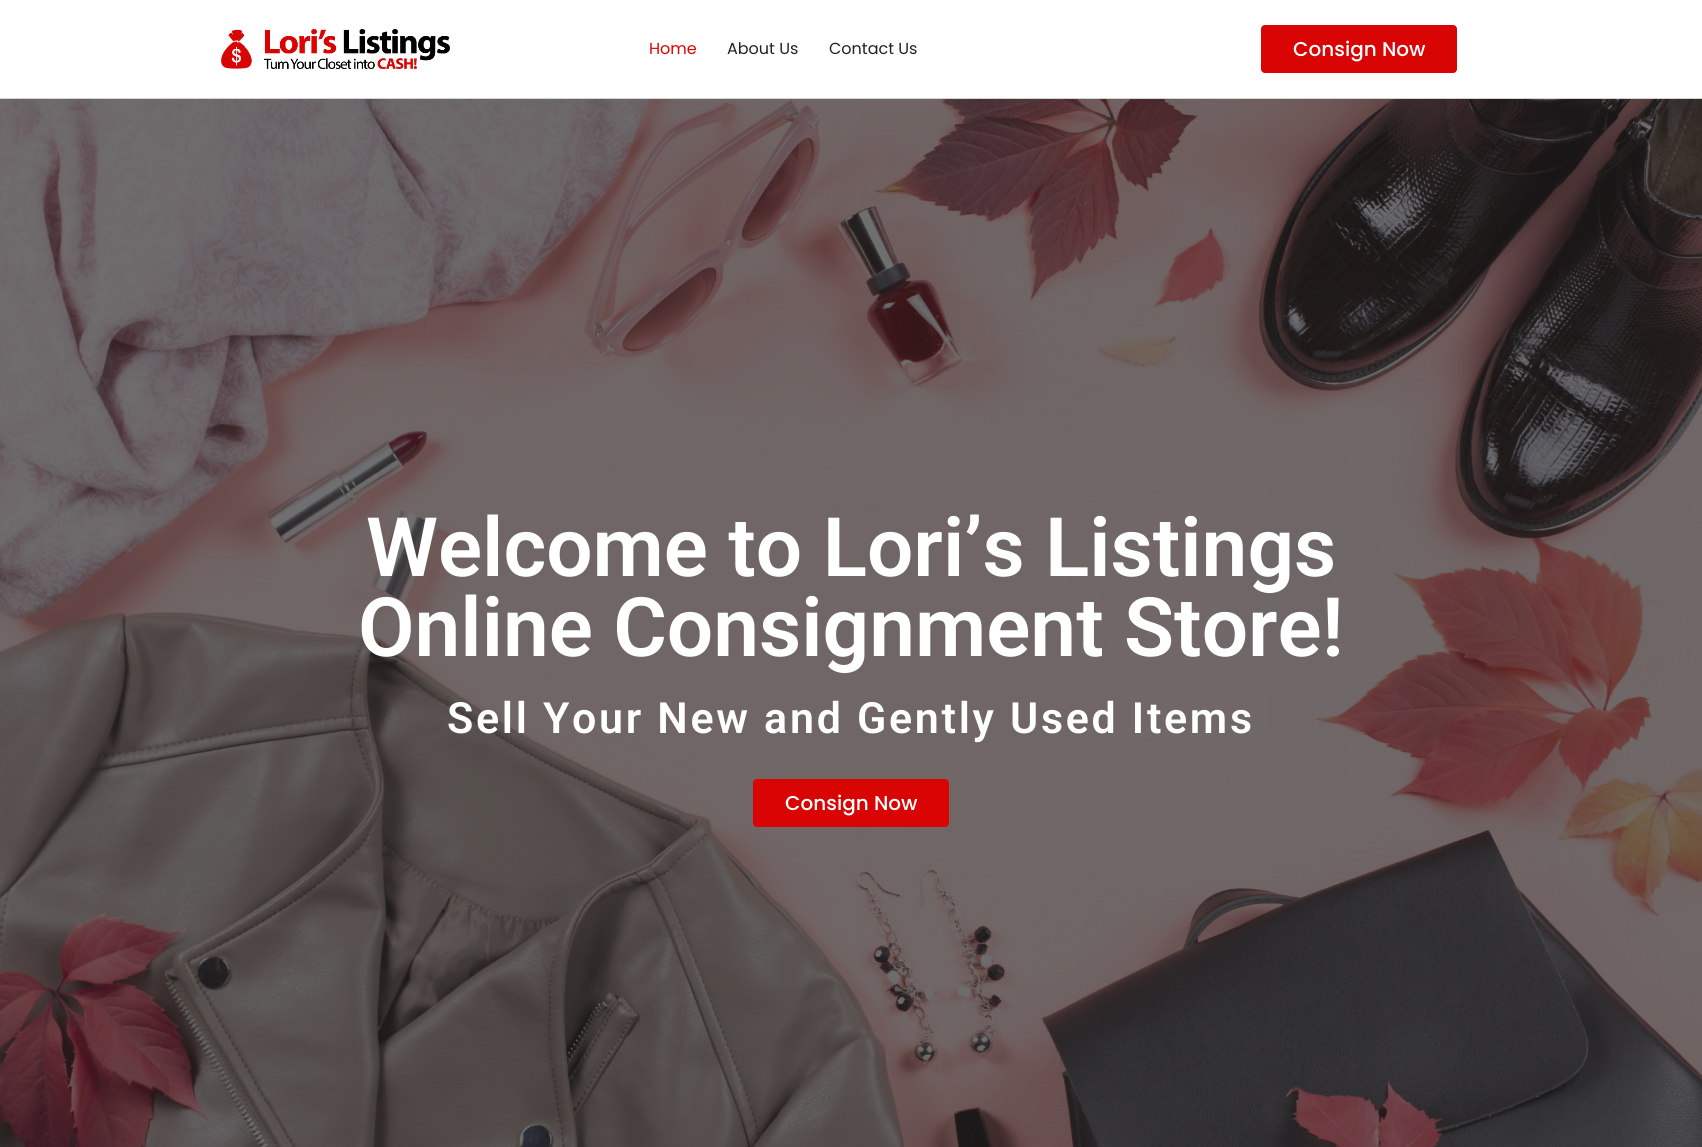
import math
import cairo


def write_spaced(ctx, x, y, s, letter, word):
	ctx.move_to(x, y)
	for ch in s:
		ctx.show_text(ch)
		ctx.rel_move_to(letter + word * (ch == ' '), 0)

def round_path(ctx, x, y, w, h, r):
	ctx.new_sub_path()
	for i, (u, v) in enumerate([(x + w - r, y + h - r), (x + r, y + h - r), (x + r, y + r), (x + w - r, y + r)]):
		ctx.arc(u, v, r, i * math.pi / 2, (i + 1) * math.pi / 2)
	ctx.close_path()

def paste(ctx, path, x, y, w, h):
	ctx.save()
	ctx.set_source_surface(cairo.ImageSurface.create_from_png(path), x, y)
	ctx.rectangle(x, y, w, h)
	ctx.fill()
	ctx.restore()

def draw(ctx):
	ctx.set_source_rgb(1, 1, 1)
	ctx.paint()
	ctx.set_source_rgb(0.827, 0.827, 0.827)
	ctx.rectangle(0, 98, 1702, 1)
	ctx.fill()
	paste(ctx, 'media/1.png', 221, 29, 229, 40)
	ctx.select_font_face('Poppins')
	ctx.set_font_size(16)
	ctx.set_source_rgb(0.851, 0.02, 0.016)
	ctx.move_to(649, 54)
	ctx.show_text('Home')
	ctx.set_source_rgb(0.137, 0.133, 0.133)
	ctx.move_to(727, 54)
	ctx.show_text('About Us')
	ctx.move_to(829, 54)
	ctx.show_text('Contact Us')
	ctx.set_source_rgb(0.851, 0.02, 0.016)
	round_path(ctx, 1261, 25, 196, 48, 4)
	ctx.fill()
	ctx.select_font_face('Poppins Medium')
	ctx.set_font_size(20)
	ctx.set_source_rgb(1, 1, 1)
	ctx.move_to(1293, 56)
	ctx.show_text('Consign Now')
	paste(ctx, 'media/2.png', 0, 99, 1702, 1048)
	ctx.select_font_face('Roboto SemiBold')
	ctx.set_font_size(82)
	ctx.move_to(366, 576)
	ctx.show_text('Welcome to Lori’s Listings')
	ctx.move_to(358, 656)
	ctx.show_text('Online Consignment Store!')
	ctx.set_font_size(43)
	write_spaced(ctx, 447, 733, 'Sell Your New and Gently Used Items', 2.7, 0)
	ctx.set_source_rgb(0.851, 0.02, 0.016)
	round_path(ctx, 753, 779, 196, 48, 4)
	ctx.fill()
	ctx.select_font_face('Poppins Medium')
	ctx.set_font_size(20)
	ctx.set_source_rgb(1, 1, 1)
	ctx.move_to(785, 810)
	ctx.show_text('Consign Now')


surface = cairo.ImageSurface(cairo.FORMAT_RGB24, 1702, 1147)
ctx = cairo.Context(surface)
options = cairo.FontOptions()
options.set_hint_metrics(cairo.HINT_METRICS_OFF)
options.set_hint_style(cairo.HINT_STYLE_NONE)
ctx.set_font_options(options)
ctx.set_miter_limit(4)
draw(ctx)
surface.write_to_png('image.png')
